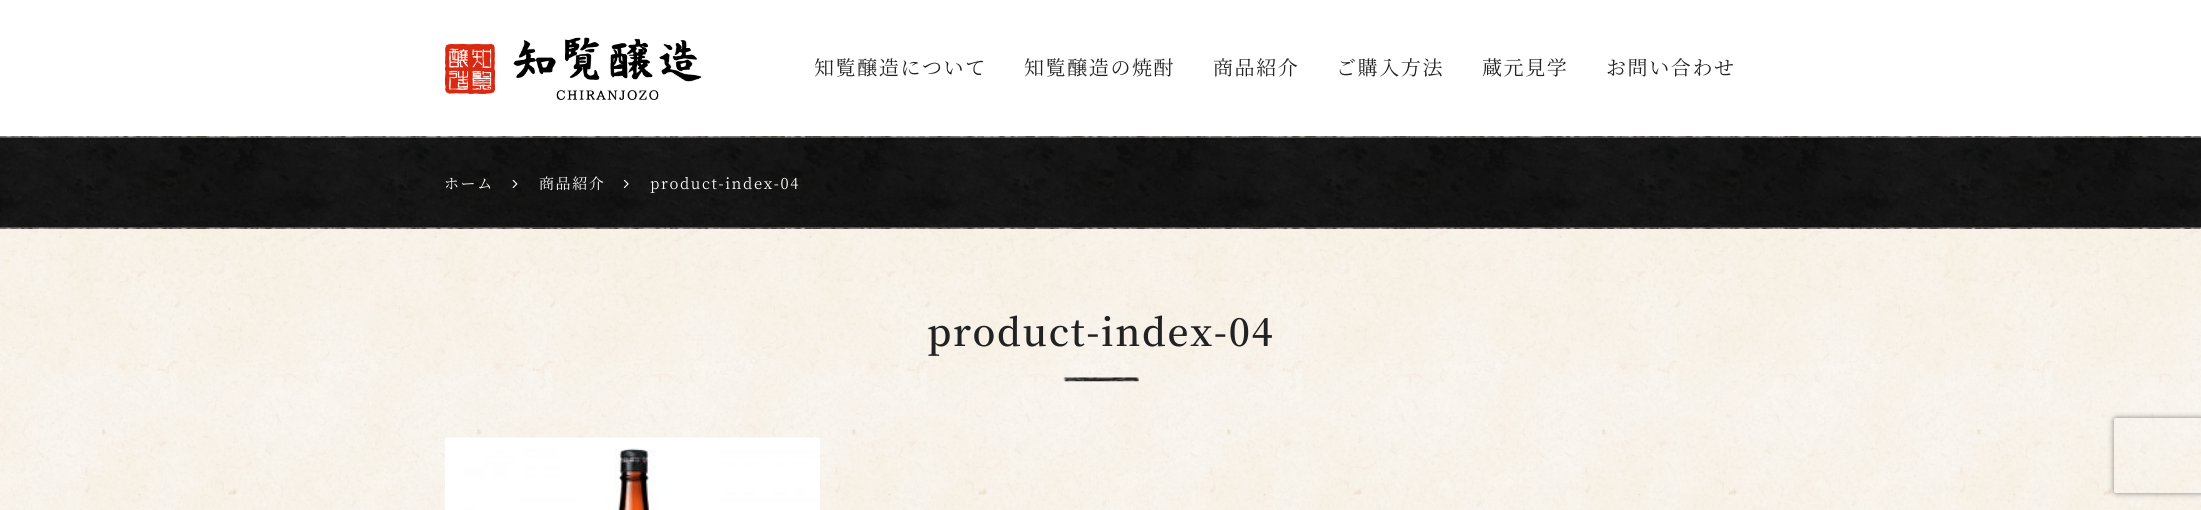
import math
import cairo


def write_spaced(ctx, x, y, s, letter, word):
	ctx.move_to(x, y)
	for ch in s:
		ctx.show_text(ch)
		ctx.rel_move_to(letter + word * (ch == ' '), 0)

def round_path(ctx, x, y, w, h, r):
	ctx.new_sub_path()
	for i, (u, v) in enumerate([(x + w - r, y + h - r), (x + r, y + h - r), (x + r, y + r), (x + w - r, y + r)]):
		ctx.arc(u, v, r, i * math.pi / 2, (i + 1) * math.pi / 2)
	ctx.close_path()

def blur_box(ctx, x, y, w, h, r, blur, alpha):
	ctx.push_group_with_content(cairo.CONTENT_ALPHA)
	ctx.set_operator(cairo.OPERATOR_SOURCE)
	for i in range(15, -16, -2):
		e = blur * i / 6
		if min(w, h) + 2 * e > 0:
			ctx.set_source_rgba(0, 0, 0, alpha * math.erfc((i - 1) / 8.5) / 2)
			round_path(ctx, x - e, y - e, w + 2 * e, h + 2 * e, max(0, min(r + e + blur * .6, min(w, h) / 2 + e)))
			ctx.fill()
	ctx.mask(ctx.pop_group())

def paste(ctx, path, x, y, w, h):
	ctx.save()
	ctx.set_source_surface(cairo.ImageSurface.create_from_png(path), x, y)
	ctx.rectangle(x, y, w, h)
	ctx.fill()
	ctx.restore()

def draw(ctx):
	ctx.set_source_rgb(1, 1, 1)
	ctx.paint()
	paste(ctx, 'media/1.png', 0, 227, 2201, 283)
	paste(ctx, 'media/2.png', 445, 37, 257, 63)
	ctx.select_font_face('Noto Serif CJK JP')
	ctx.set_font_size(20)
	ctx.set_source_rgb(0.133, 0.133, 0.133)
	for x, y, s in [
		(814, 75, '知覧醸造について'),
		(1024, 75, '知覧醸造の焼酎'),
		(1213, 75, '商品紹介'),
		(1336, 75, 'ご購入方法'),
		(1482, 75, '蔵元見学'),
		(1606, 75, 'お問い合わせ'),
	]:
		write_spaced(ctx, x, y, s, 1.6, 0)
	paste(ctx, 'media/3.png', 0, 137, 2201, 91)
	paste(ctx, 'media/4.png', 0, 136, 2201, 2)
	ctx.set_font_size(15)
	ctx.set_source_rgb(1, 1, 1)
	write_spaced(ctx, 444, 189, 'ホーム', 1.6, 0)
	paste(ctx, 'media/5.png', 512, 179, 6, 10)
	write_spaced(ctx, 539, 189, '商品紹介', 1.6, 0)
	paste(ctx, 'media/6.png', 623, 179, 6, 10)
	write_spaced(ctx, 650, 189, 'product-index-04', 1.6, 0)
	paste(ctx, 'media/7.png', 0, 227, 2201, 2)
	ctx.select_font_face('Noto Serif CJK JP SemiBold')
	ctx.set_font_size(37.5)
	ctx.set_source_rgb(0.133, 0.133, 0.133)
	write_spaced(ctx, 927, 346, 'product-index-04', 1.6, 0)
	paste(ctx, 'media/8.png', 1063, 377, 76, 5)
	paste(ctx, 'media/9.png', 445, 437, 375, 73)
	ctx.save()
	ctx.set_fill_rule(cairo.FILL_RULE_EVEN_ODD)
	ctx.new_path()
	ctx.move_to(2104, 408)
	ctx.line_to(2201, 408)
	ctx.line_to(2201, 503)
	ctx.line_to(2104, 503)
	ctx.close_path()
	ctx.move_to(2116.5, 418)
	ctx.line_to(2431.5, 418)
	ctx.curve_to(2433, 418, 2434, 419, 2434, 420.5)
	ctx.line_to(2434, 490.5)
	ctx.curve_to(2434, 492, 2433, 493, 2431.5, 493)
	ctx.line_to(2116.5, 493)
	ctx.curve_to(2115, 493, 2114, 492, 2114, 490.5)
	ctx.line_to(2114, 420.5)
	ctx.curve_to(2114, 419, 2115, 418, 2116.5, 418)
	ctx.close_path()
	ctx.clip()
	ctx.set_source_rgb(0.502, 0.502, 0.502)
	blur_box(ctx, 2114, 418, 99, 75, 2.5, 3, 1)
	ctx.restore()


surface = cairo.ImageSurface(cairo.FORMAT_RGB24, 2201, 510)
ctx = cairo.Context(surface)
options = cairo.FontOptions()
options.set_hint_metrics(cairo.HINT_METRICS_OFF)
options.set_hint_style(cairo.HINT_STYLE_NONE)
ctx.set_font_options(options)
ctx.set_miter_limit(4)
draw(ctx)
surface.write_to_png('image.png')
